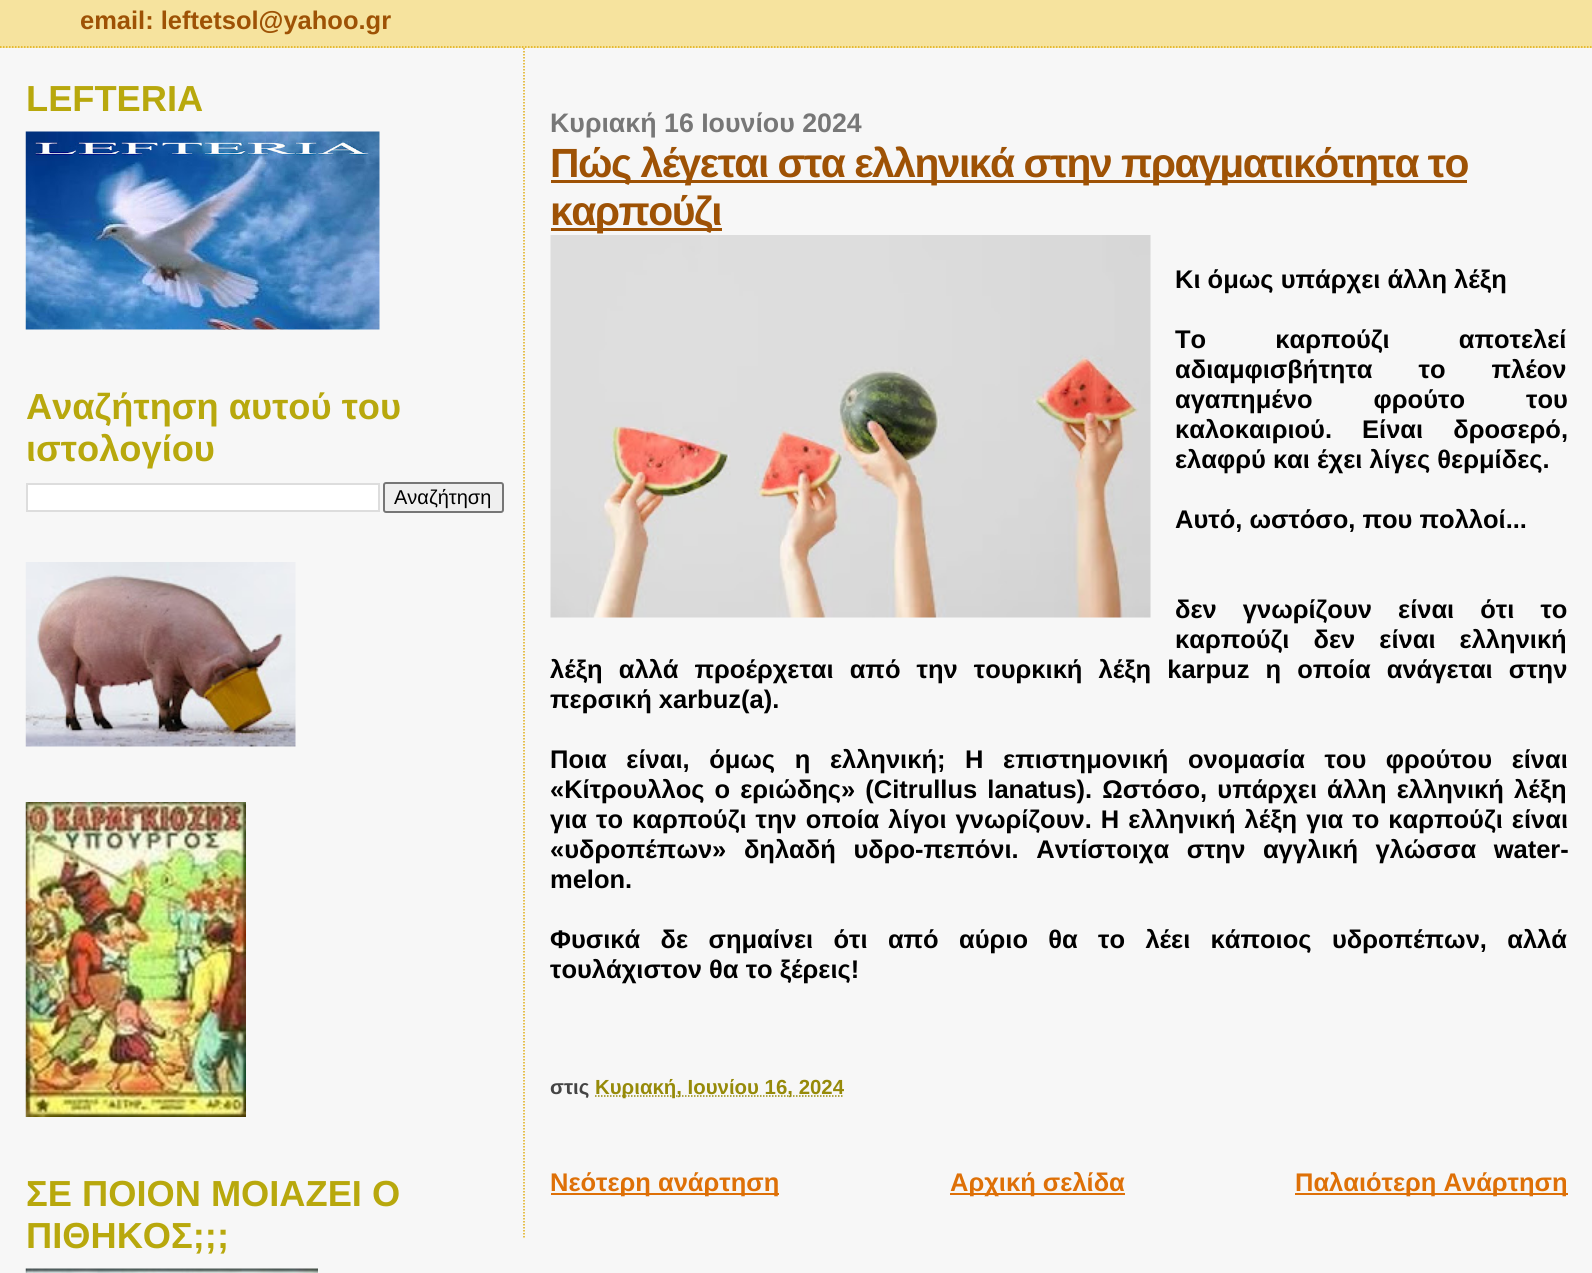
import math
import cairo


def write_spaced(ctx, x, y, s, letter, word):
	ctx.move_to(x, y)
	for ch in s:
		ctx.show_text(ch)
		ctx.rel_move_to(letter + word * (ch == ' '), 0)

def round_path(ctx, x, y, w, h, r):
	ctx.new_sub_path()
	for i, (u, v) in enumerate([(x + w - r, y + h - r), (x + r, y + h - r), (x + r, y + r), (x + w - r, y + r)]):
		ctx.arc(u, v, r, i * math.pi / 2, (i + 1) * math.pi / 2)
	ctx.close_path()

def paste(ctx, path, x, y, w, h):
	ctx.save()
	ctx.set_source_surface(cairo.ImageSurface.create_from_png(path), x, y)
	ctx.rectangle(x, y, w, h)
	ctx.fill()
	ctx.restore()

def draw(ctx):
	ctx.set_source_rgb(0.965, 0.965, 0.965)
	ctx.paint()
	ctx.set_source_rgb(0.961, 0.89, 0.62)
	ctx.rectangle(0, 0, 1592, 48)
	ctx.fill()
	ctx.new_path()
	ctx.move_to(0, 47)
	ctx.line_to(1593, 47)
	ctx.set_source_rgb(0.878, 0.678, 0.071)
	ctx.set_line_width(1.5)
	ctx.set_dash([1.5, 1.5])
	ctx.stroke()
	ctx.select_font_face('Liberation Sans', cairo.FONT_SLANT_NORMAL, cairo.FONT_WEIGHT_BOLD)
	ctx.set_font_size(25.5)
	ctx.set_source_rgb(0.62, 0.322, 0.02)
	ctx.move_to(80, 29)
	ctx.show_text('email: leftetsol@yahoo.gr')
	ctx.set_font_size(36.25)
	ctx.set_source_rgb(0.722, 0.659, 0.051)
	ctx.move_to(26, 111)
	ctx.show_text('LEFTERIA')
	paste(ctx, 'media/1.png', 25, 131, 355, 199)
	ctx.move_to(26, 419)
	ctx.show_text('Αναζήτηση αυτού του')
	ctx.move_to(26, 461)
	ctx.show_text('ιστολογίου')
	ctx.set_source_rgb(1, 1, 1)
	ctx.rectangle(27, 484, 352, 27)
	ctx.fill_preserve()
	ctx.set_source_rgb(0.867, 0.867, 0.867)
	ctx.set_line_width(2)
	ctx.set_dash([])
	ctx.stroke()
	ctx.set_source_rgb(0.937, 0.937, 0.937)
	round_path(ctx, 384, 483, 119, 29, 2)
	ctx.fill_preserve()
	ctx.set_source_rgb(0.463, 0.463, 0.463)
	ctx.stroke()
	ctx.select_font_face('Liberation Sans')
	ctx.set_font_size(20)
	ctx.set_source_rgb(0, 0, 0)
	ctx.move_to(394, 504)
	ctx.show_text('Αναζήτηση')
	paste(ctx, 'media/2.png', 25, 562, 271, 185)
	paste(ctx, 'media/3.png', 25, 802, 221, 315)
	ctx.select_font_face('Liberation Sans', cairo.FONT_SLANT_NORMAL, cairo.FONT_WEIGHT_BOLD)
	ctx.set_font_size(36.25)
	ctx.set_source_rgb(0.722, 0.659, 0.051)
	ctx.move_to(26, 1206)
	ctx.show_text('ΣΕ ΠΟΙΟΝ ΜΟΙΑΖΕΙ Ο')
	ctx.move_to(26, 1248)
	ctx.show_text('ΠΙΘΗΚΟΣ;;;')
	paste(ctx, 'media/4.png', 25, 1268, 293, 5)
	ctx.new_path()
	ctx.move_to(524, 48)
	ctx.line_to(524, 1239)
	ctx.set_source_rgb(0.878, 0.678, 0.071)
	ctx.set_line_width(1.5)
	ctx.set_dash([1.5, 1.5])
	ctx.stroke()
	ctx.set_font_size(26.75)
	ctx.set_source_rgb(0.467, 0.467, 0.467)
	ctx.move_to(550, 132)
	ctx.show_text('Κυριακή 16 Ιουνίου 2024')
	ctx.set_source_rgb(0.62, 0.322, 0.02)
	ctx.rectangle(551, 180, 916, 3)
	ctx.fill()
	ctx.set_font_size(40.8)
	write_spaced(ctx, 550, 177, 'Πώς λέγεται στα ελληνικά στην πραγματικότητα το', -1.5, 0)
	ctx.rectangle(551, 228, 171, 3)
	ctx.fill()
	write_spaced(ctx, 550, 225, 'καρπούζι', -1.5, 0)
	paste(ctx, 'media/5.png', 550, 235, 601, 383)
	ctx.set_font_size(25.5)
	ctx.set_source_rgb(0, 0, 0)
	ctx.move_to(1175, 288)
	ctx.show_text('Κι όμως υπάρχει άλλη λέξη')
	write_spaced(ctx, 1175, 348, 'Το καρπούζι αποτελεί', 0, 62)
	write_spaced(ctx, 1175, 378, 'αδιαμφισβήτητα το πλέον', 0, 39)
	write_spaced(ctx, 1175, 408, 'αγαπημένο φρούτο του', 0, 54)
	write_spaced(ctx, 1175, 438, 'καλοκαιριού. Είναι δροσερό,', 0, 23)
	ctx.move_to(1175, 468)
	ctx.show_text('ελαφρύ και έχει λίγες θερμίδες.')
	ctx.move_to(1175, 528)
	ctx.show_text('Αυτό, ωστόσο, που πολλοί...')
	write_spaced(ctx, 1175, 618, 'δεν γνωρίζουν είναι ότι το', 0, 19)
	write_spaced(ctx, 1175, 648, 'καρπούζι δεν είναι ελληνική', 0, 17)
	write_spaced(ctx, 550, 678, 'λέξη αλλά προέρχεται από την τουρκική λέξη karpuz η οποία ανάγεται στην', 0, 9)
	ctx.move_to(550, 708)
	ctx.show_text('περσική xarbuz(a).')
	write_spaced(ctx, 550, 768, 'Ποια είναι, όμως η ελληνική; H επιστημονική ονομασία του φρούτου είναι', 0, 12.5)
	write_spaced(ctx, 550, 798, '«Κίτρουλλος ο εριώδης» (Citrullus lanatus). Ωστόσο, υπάρχει άλλη ελληνική λέξη', 0, 3)
	write_spaced(ctx, 550, 828, 'για το καρπούζι την οποία λίγοι γνωρίζουν. Η ελληνική λέξη για το καρπούζι είναι', 0, 2)
	write_spaced(ctx, 550, 858, '«υδροπέπων» δηλαδή υδρο-πεπόνι. Αντίστοιχα στην αγγλική γλώσσα water-', 0, 10.5)
	ctx.move_to(550, 888)
	ctx.show_text('melon.')
	write_spaced(ctx, 550, 948, 'Φυσικά δε σημαίνει ότι από αύριο θα το λέει κάποιος υδροπέπων, αλλά', 0, 13.25)
	ctx.move_to(550, 978)
	ctx.show_text('τουλάχιστον θα το ξέρεις!')
	ctx.set_font_size(20.4)
	ctx.set_source_rgb(0.267, 0.267, 0.267)
	ctx.move_to(550, 1094)
	ctx.show_text('στις')
	ctx.new_path()
	ctx.move_to(595, 1096)
	ctx.line_to(843.5, 1096)
	ctx.set_source_rgb(0.588, 0.541, 0.039)
	ctx.stroke()
	ctx.move_to(595, 1094)
	ctx.show_text('Κυριακή, Ιουνίου 16, 2024')
	ctx.set_source_rgb(0.871, 0.439, 0.031)
	ctx.rectangle(551, 1193, 228, 2)
	ctx.fill()
	ctx.set_font_size(25.5)
	ctx.move_to(550, 1191)
	ctx.show_text('Νεότερη ανάρτηση')
	ctx.rectangle(950, 1193, 175, 2)
	ctx.fill()
	ctx.move_to(950, 1191)
	ctx.show_text('Αρχική σελίδα')
	ctx.rectangle(1295, 1193, 273, 2)
	ctx.fill()
	ctx.move_to(1295, 1191)
	ctx.show_text('Παλαιότερη Ανάρτηση')


surface = cairo.ImageSurface(cairo.FORMAT_RGB24, 1592, 1273)
ctx = cairo.Context(surface)
options = cairo.FontOptions()
options.set_hint_metrics(cairo.HINT_METRICS_OFF)
options.set_hint_style(cairo.HINT_STYLE_NONE)
ctx.set_font_options(options)
ctx.set_miter_limit(4)
draw(ctx)
surface.write_to_png('image.png')
